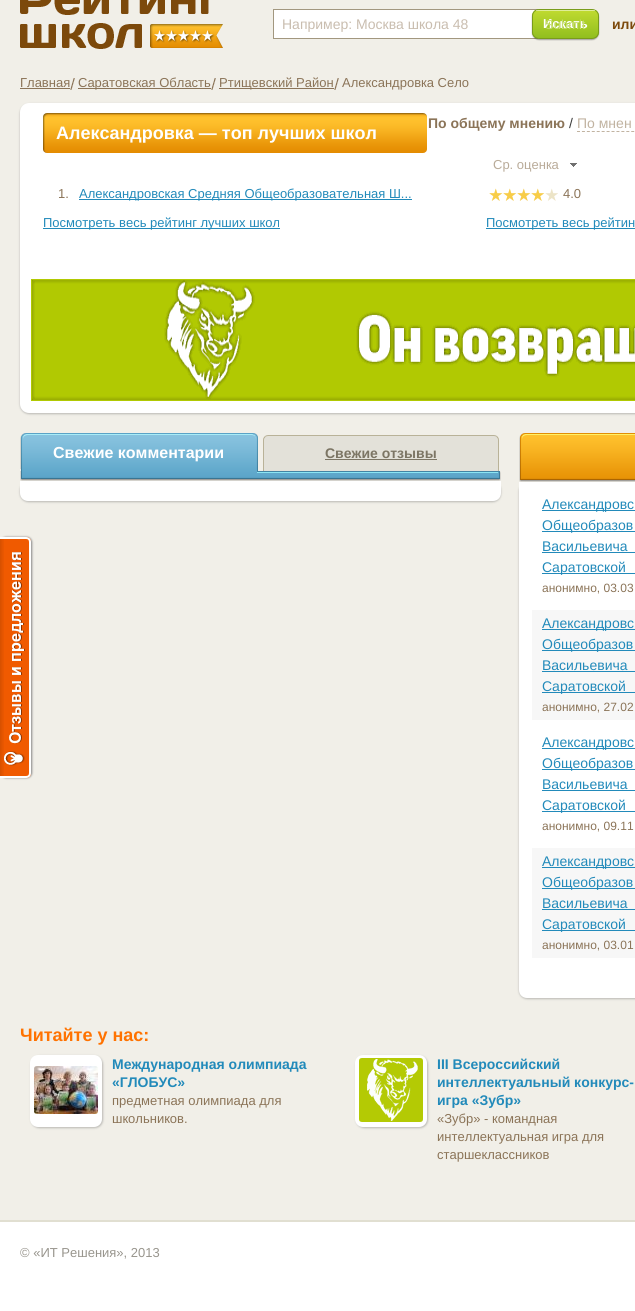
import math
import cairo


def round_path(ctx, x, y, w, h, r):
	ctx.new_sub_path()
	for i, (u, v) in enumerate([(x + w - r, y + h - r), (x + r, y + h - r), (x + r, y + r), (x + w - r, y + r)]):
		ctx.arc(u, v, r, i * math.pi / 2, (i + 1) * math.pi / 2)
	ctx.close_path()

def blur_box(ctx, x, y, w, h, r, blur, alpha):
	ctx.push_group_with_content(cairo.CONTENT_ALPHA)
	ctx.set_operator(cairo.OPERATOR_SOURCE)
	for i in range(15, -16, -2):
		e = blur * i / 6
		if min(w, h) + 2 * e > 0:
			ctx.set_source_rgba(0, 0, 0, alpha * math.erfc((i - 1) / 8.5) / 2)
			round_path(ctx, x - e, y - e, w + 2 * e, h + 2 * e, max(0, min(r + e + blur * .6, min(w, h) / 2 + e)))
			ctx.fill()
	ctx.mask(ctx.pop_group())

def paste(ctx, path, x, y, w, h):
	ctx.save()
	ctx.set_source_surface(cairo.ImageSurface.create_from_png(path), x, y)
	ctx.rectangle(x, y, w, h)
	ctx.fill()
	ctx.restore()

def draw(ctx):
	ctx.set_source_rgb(0.945, 0.937, 0.91)
	ctx.paint()
	ctx.set_source_rgb(0.533, 0.533, 0.533)
	blur_box(ctx, 1, 537, 31, 241, 5, 1, 1)
	ctx.set_source_rgb(0.941, 0.353, 0)
	ctx.new_path()
	ctx.move_to(0, 537)
	ctx.line_to(26, 537)
	ctx.curve_to(29, 537, 31, 539, 31, 542)
	ctx.line_to(31, 773)
	ctx.curve_to(31, 776, 29, 778, 26, 778)
	ctx.line_to(0, 778)
	ctx.close_path()
	ctx.fill()
	paste(ctx, 'media/1.png', 0, 539, 4, 237)
	ctx.set_source_rgb(1, 1, 1)
	ctx.set_fill_rule(cairo.FILL_RULE_EVEN_ODD)
	ctx.new_path()
	ctx.move_to(0, 537)
	ctx.line_to(26, 537)
	ctx.curve_to(29, 537, 31, 539, 31, 542)
	ctx.line_to(31, 773)
	ctx.curve_to(31, 776, 29, 778, 26, 778)
	ctx.line_to(0, 778)
	ctx.close_path()
	ctx.move_to(0, 539)
	ctx.line_to(26, 539)
	ctx.curve_to(28, 539, 29, 540, 29, 542)
	ctx.line_to(29, 773)
	ctx.curve_to(29, 775, 28, 776, 26, 776)
	ctx.line_to(0, 776)
	ctx.close_path()
	ctx.fill()
	paste(ctx, 'media/2.png', 4, 552, 21, 214)
	paste(ctx, 'media/3.png', 20, 0, 203, 49)
	ctx.rectangle(274, 10, 262, 28)
	ctx.fill()
	ctx.rectangle(273.5, 9.5, 264, 29)
	ctx.set_source_rgb(0.635, 0.592, 0.498)
	ctx.set_line_width(1)
	ctx.stroke()
	ctx.select_font_face('Liberation Sans')
	ctx.set_font_size(14)
	ctx.set_source_rgb(0.788, 0.741, 0.686)
	ctx.move_to(282, 29)
	ctx.show_text('Например: Москва школа 48')
	ctx.set_source_rgb(0, 0, 0)
	blur_box(ctx, 532, 10, 67, 30, 7, 0.5, 0.3)
	ctx.save()
	ctx.set_fill_rule(cairo.FILL_RULE_WINDING)
	round_path(ctx, 532, 9, 67, 30, 7)
	ctx.clip()
	gradient = cairo.LinearGradient(566, 10, 566, 38)
	gradient.add_color_stop_rgba(0, 0.753, 0.855, 0.188, 1)
	gradient.add_color_stop_rgba(1, 0.569, 0.749, 0.122, 1)
	ctx.set_source(gradient)
	ctx.rectangle(532, 10, 67, 28)
	ctx.fill()
	ctx.restore()
	round_path(ctx, 532.5, 9.5, 66, 29, 6.5)
	ctx.set_source_rgb(0.475, 0.612, 0.106)
	ctx.stroke()
	ctx.set_source_rgba(1, 1, 1, 0.5)
	ctx.rectangle(536, 10, 59, 1)
	ctx.fill()
	ctx.select_font_face('Liberation Sans', cairo.FONT_SLANT_NORMAL, cairo.FONT_WEIGHT_BOLD)
	ctx.set_font_size(13)
	ctx.set_source_rgb(1, 1, 1)
	ctx.move_to(543, 28)
	ctx.show_text('Искать')
	ctx.select_font_face('Liberation Sans')
	ctx.set_source_rgb(0.773, 0.867, 0.447)
	ctx.move_to(545, 29)
	ctx.show_text('Submit')
	ctx.select_font_face('Liberation Sans', cairo.FONT_SLANT_NORMAL, cairo.FONT_WEIGHT_BOLD)
	ctx.set_font_size(14)
	ctx.set_source_rgb(0.486, 0.286, 0.043)
	ctx.move_to(612, 29)
	ctx.show_text('или')
	ctx.select_font_face('Liberation Sans')
	ctx.set_font_size(13)
	ctx.set_source_rgb(0.545, 0.455, 0.345)
	ctx.move_to(20, 87)
	ctx.show_text('Главная')
	ctx.rectangle(20, 88, 50, 1)
	ctx.fill()
	paste(ctx, 'media/4.png', 70, 78, 5, 12)
	ctx.rectangle(78, 88, 133, 1)
	ctx.fill()
	ctx.move_to(78, 87)
	ctx.show_text('Саратовская Область')
	paste(ctx, 'media/4.png', 211, 78, 5, 12)
	ctx.rectangle(219, 88, 115, 1)
	ctx.fill()
	ctx.move_to(219, 87)
	ctx.show_text('Ртищевский Район')
	paste(ctx, 'media/4.png', 334, 78, 5, 12)
	ctx.move_to(342, 87)
	ctx.show_text('Александровка Село')
	ctx.set_source_rgb(0.729, 0.725, 0.71)
	blur_box(ctx, 20, 104, 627, 310, 9, 1, 1)
	ctx.set_source_rgb(1, 1, 1)
	round_path(ctx, 20, 103, 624, 310, 9)
	ctx.fill()
	ctx.select_font_face('Liberation Sans', cairo.FONT_SLANT_NORMAL, cairo.FONT_WEIGHT_BOLD)
	ctx.set_font_size(14)
	ctx.set_source_rgb(0.545, 0.455, 0.345)
	ctx.move_to(428, 128)
	ctx.show_text('По общему мнению')
	ctx.select_font_face('Liberation Sans')
	ctx.set_source_rgb(0.235, 0.235, 0.235)
	ctx.move_to(569, 128)
	ctx.show_text('/')
	ctx.set_source_rgb(0.757, 0.702, 0.631)
	ctx.move_to(577, 128)
	ctx.show_text('По мнен')
	ctx.new_path()
	ctx.move_to(577, 131.5)
	ctx.line_to(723, 131.5)
	ctx.set_dash([3, 1.93])
	ctx.stroke()
	paste(ctx, 'media/5.png', 423, 113, 4, 40)
	paste(ctx, 'media/6.png', 43, 113, 380, 40)
	ctx.select_font_face('Liberation Sans', cairo.FONT_SLANT_NORMAL, cairo.FONT_WEIGHT_BOLD)
	ctx.set_font_size(18)
	ctx.set_source_rgb(1, 1, 1)
	ctx.move_to(56, 139)
	ctx.show_text('Александровка — топ лучших школ')
	ctx.select_font_face('Liberation Sans')
	ctx.set_font_size(13)
	ctx.set_source_rgb(0.725, 0.671, 0.6)
	ctx.move_to(493, 169)
	ctx.show_text('Ср. оценка')
	paste(ctx, 'media/7.png', 570, 163, 7, 4)
	ctx.set_source_rgb(0.545, 0.455, 0.345)
	ctx.move_to(58, 198)
	ctx.show_text('1.')
	ctx.set_source_rgb(0.133, 0.541, 0.729)
	ctx.rectangle(79, 199, 333, 1)
	ctx.fill()
	ctx.move_to(79, 198)
	ctx.show_text('Александровская Средняя Общеобразовательная Ш...')
	paste(ctx, 'media/8.png', 489, 188, 69, 13)
	paste(ctx, 'media/9.png', 489, 188, 56, 13)
	ctx.set_source_rgb(0.545, 0.455, 0.345)
	ctx.move_to(563, 198)
	ctx.show_text('4.0')
	ctx.set_source_rgb(0.133, 0.541, 0.729)
	ctx.rectangle(43, 228, 237, 1)
	ctx.fill()
	ctx.move_to(43, 227)
	ctx.show_text('Посмотреть весь рейтинг лучших школ')
	ctx.rectangle(486, 228, 149, 1)
	ctx.fill()
	ctx.move_to(486, 227)
	ctx.show_text('Посмотреть весь рейтин')
	paste(ctx, 'media/10.png', 31, 279, 604, 122)
	paste(ctx, 'media/11.png', 20, 471, 481, 10)
	paste(ctx, 'media/12.png', 20, 433, 238, 40)
	ctx.select_font_face('Liberation Sans', cairo.FONT_SLANT_NORMAL, cairo.FONT_WEIGHT_BOLD)
	ctx.set_font_size(16)
	ctx.set_source_rgb(1, 1, 1)
	ctx.move_to(53, 458)
	ctx.show_text('Свежие комментарии')
	paste(ctx, 'media/13.png', 263, 435, 236, 36)
	ctx.set_font_size(14)
	ctx.set_source_rgb(0.486, 0.459, 0.392)
	ctx.move_to(325, 458)
	ctx.show_text('Свежие отзывы')
	ctx.rectangle(325, 459, 112, 1)
	ctx.fill()
	ctx.set_source_rgb(0.729, 0.725, 0.71)
	blur_box(ctx, 20, 482, 481, 20, 8, 1, 1)
	ctx.set_source_rgb(1, 1, 1)
	ctx.new_path()
	ctx.move_to(20, 481)
	ctx.line_to(501, 481)
	ctx.line_to(501, 493)
	ctx.curve_to(501, 497.5, 497.5, 501, 493, 501)
	ctx.line_to(28, 501)
	ctx.curve_to(23.5, 501, 20, 497.5, 20, 493)
	ctx.close_path()
	ctx.fill()
	paste(ctx, 'media/14.png', 519, 433, 116, 49)
	ctx.set_source_rgb(0.729, 0.725, 0.71)
	blur_box(ctx, 519, 483, 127, 516, 8, 1, 1)
	ctx.set_source_rgb(1, 1, 1)
	ctx.new_path()
	ctx.move_to(519, 482)
	ctx.line_to(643, 482)
	ctx.line_to(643, 990)
	ctx.curve_to(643, 994.5, 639.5, 998, 635, 998)
	ctx.line_to(527, 998)
	ctx.curve_to(522.5, 998, 519, 994.5, 519, 990)
	ctx.close_path()
	ctx.fill()
	ctx.set_source_rgb(0.133, 0.541, 0.729)
	ctx.rectangle(542, 510, 93, 1)
	ctx.fill()
	ctx.select_font_face('Liberation Sans')
	ctx.move_to(542, 509)
	ctx.show_text('Александровс')
	ctx.rectangle(542, 531, 93, 1)
	ctx.fill()
	ctx.move_to(542, 530)
	ctx.show_text('Общеобразов')
	ctx.move_to(542, 551)
	ctx.show_text('Васильевича')
	ctx.rectangle(542, 552, 93, 1)
	ctx.fill()
	ctx.rectangle(542, 573, 93, 1)
	ctx.fill()
	ctx.move_to(542, 572)
	ctx.show_text('Саратовской')
	ctx.set_font_size(12)
	ctx.set_source_rgb(0.545, 0.455, 0.345)
	ctx.move_to(542, 592)
	ctx.show_text('анонимно, 03.03')
	ctx.set_source_rgb(0.965, 0.965, 0.965)
	ctx.rectangle(532, 610, 103, 110)
	ctx.fill()
	ctx.set_source_rgb(0.133, 0.541, 0.729)
	ctx.rectangle(542, 629, 93, 1)
	ctx.fill()
	ctx.set_font_size(14)
	ctx.move_to(542, 628)
	ctx.show_text('Александровс')
	ctx.rectangle(542, 650, 93, 1)
	ctx.fill()
	ctx.move_to(542, 649)
	ctx.show_text('Общеобразов')
	ctx.move_to(542, 670)
	ctx.show_text('Васильевича')
	ctx.rectangle(542, 671, 93, 1)
	ctx.fill()
	ctx.rectangle(542, 692, 93, 1)
	ctx.fill()
	ctx.move_to(542, 691)
	ctx.show_text('Саратовской')
	ctx.set_font_size(12)
	ctx.set_source_rgb(0.545, 0.455, 0.345)
	ctx.move_to(542, 711)
	ctx.show_text('анонимно, 27.02')
	ctx.set_source_rgb(0.133, 0.541, 0.729)
	ctx.rectangle(542, 748, 93, 1)
	ctx.fill()
	ctx.set_font_size(14)
	ctx.move_to(542, 747)
	ctx.show_text('Александровс')
	ctx.rectangle(542, 769, 93, 1)
	ctx.fill()
	ctx.move_to(542, 768)
	ctx.show_text('Общеобразов')
	ctx.move_to(542, 789)
	ctx.show_text('Васильевича')
	ctx.rectangle(542, 790, 93, 1)
	ctx.fill()
	ctx.rectangle(542, 811, 93, 1)
	ctx.fill()
	ctx.move_to(542, 810)
	ctx.show_text('Саратовской')
	ctx.set_font_size(12)
	ctx.set_source_rgb(0.545, 0.455, 0.345)
	ctx.move_to(542, 830)
	ctx.show_text('анонимно, 09.11')
	ctx.set_source_rgb(0.965, 0.965, 0.965)
	ctx.rectangle(532, 848, 103, 110)
	ctx.fill()
	ctx.set_source_rgb(0.133, 0.541, 0.729)
	ctx.rectangle(542, 867, 93, 1)
	ctx.fill()
	ctx.set_font_size(14)
	ctx.move_to(542, 866)
	ctx.show_text('Александровс')
	ctx.rectangle(542, 888, 93, 1)
	ctx.fill()
	ctx.move_to(542, 887)
	ctx.show_text('Общеобразов')
	ctx.move_to(542, 908)
	ctx.show_text('Васильевича')
	ctx.rectangle(542, 909, 93, 1)
	ctx.fill()
	ctx.rectangle(542, 930, 93, 1)
	ctx.fill()
	ctx.move_to(542, 929)
	ctx.show_text('Саратовской')
	ctx.set_font_size(12)
	ctx.set_source_rgb(0.545, 0.455, 0.345)
	ctx.move_to(542, 949)
	ctx.show_text('анонимно, 03.01')
	ctx.select_font_face('Liberation Sans', cairo.FONT_SLANT_NORMAL, cairo.FONT_WEIGHT_BOLD)
	ctx.set_font_size(18)
	ctx.set_source_rgb(1, 0.447, 0)
	ctx.move_to(20, 1041)
	ctx.show_text('Читайте у нас:')
	ctx.set_source_rgb(0.729, 0.725, 0.71)
	blur_box(ctx, 31, 1056, 72, 72, 8, 1, 1)
	ctx.set_source_rgb(1, 1, 1)
	round_path(ctx, 30, 1055, 72, 72, 8)
	ctx.fill()
	paste(ctx, 'media/15.png', 34, 1066, 64, 48)
	ctx.set_font_size(14)
	ctx.set_source_rgb(0.133, 0.541, 0.729)
	ctx.move_to(112, 1069)
	ctx.show_text('Международная олимпиада')
	ctx.move_to(112, 1087)
	ctx.show_text('«ГЛОБУС»')
	ctx.select_font_face('Liberation Sans')
	ctx.set_font_size(13)
	ctx.set_source_rgb(0.545, 0.455, 0.345)
	ctx.move_to(112, 1105)
	ctx.show_text('предметная олимпиада для')
	ctx.move_to(112, 1123)
	ctx.show_text('школьников.')
	ctx.set_source_rgb(0.729, 0.725, 0.71)
	blur_box(ctx, 356, 1056, 72, 72, 8, 1, 1)
	ctx.set_source_rgb(1, 1, 1)
	round_path(ctx, 355, 1055, 72, 72, 8)
	ctx.fill()
	paste(ctx, 'media/16.png', 359, 1058, 64, 64)
	ctx.select_font_face('Liberation Sans', cairo.FONT_SLANT_NORMAL, cairo.FONT_WEIGHT_BOLD)
	ctx.set_font_size(14)
	ctx.set_source_rgb(0.133, 0.541, 0.729)
	for x, y, s in [
		(437, 1069, 'III Всероссийский'),
		(437, 1087, 'интеллектуальный конкурс-'),
		(437, 1105, 'игра «Зубр»'),
	]:
		ctx.move_to(x, y)
		ctx.show_text(s)
	ctx.select_font_face('Liberation Sans')
	ctx.set_font_size(13)
	ctx.set_source_rgb(0.545, 0.455, 0.345)
	for x, y, s in [
		(437, 1123, '«Зубр» - командная'),
		(437, 1141, 'интеллектуальная игра для'),
		(437, 1159, 'старшеклассников'),
	]:
		ctx.move_to(x, y)
		ctx.show_text(s)
	ctx.set_source_rgb(1, 1, 1)
	ctx.rectangle(0, 1222, 635, 89)
	ctx.fill()
	ctx.set_source_rgb(0.882, 0.875, 0.82)
	ctx.rectangle(0, 1220, 635, 2)
	ctx.fill()
	ctx.set_source_rgb(0.596, 0.584, 0.553)
	ctx.move_to(20, 1257)
	ctx.show_text('© «ИТ Решения», 2013')


surface = cairo.ImageSurface(cairo.FORMAT_RGB24, 635, 1311)
ctx = cairo.Context(surface)
options = cairo.FontOptions()
options.set_hint_metrics(cairo.HINT_METRICS_OFF)
options.set_hint_style(cairo.HINT_STYLE_NONE)
ctx.set_font_options(options)
ctx.set_miter_limit(4)
draw(ctx)
surface.write_to_png('image.png')
